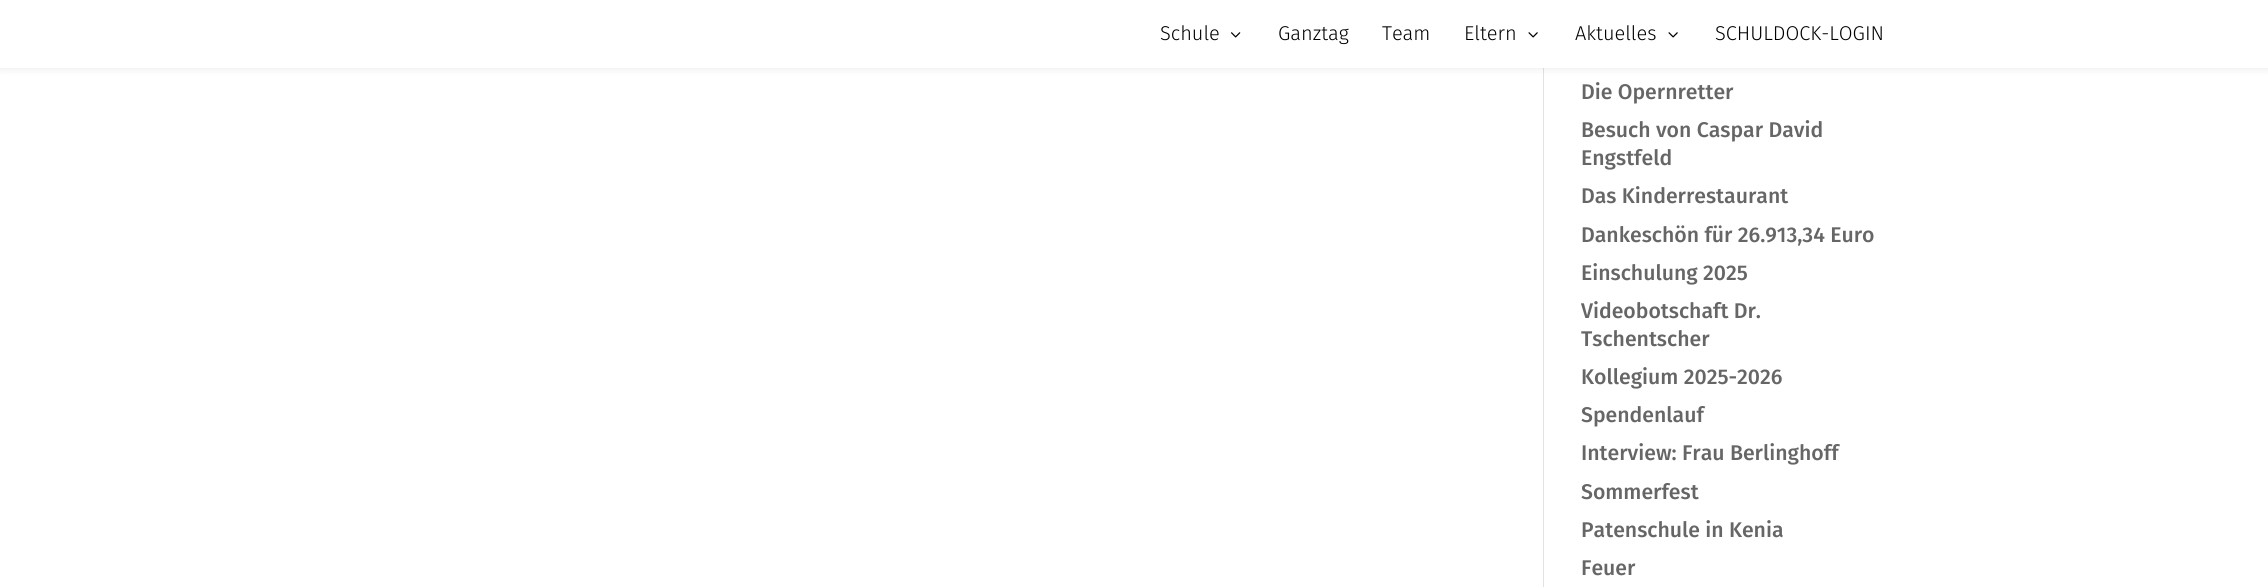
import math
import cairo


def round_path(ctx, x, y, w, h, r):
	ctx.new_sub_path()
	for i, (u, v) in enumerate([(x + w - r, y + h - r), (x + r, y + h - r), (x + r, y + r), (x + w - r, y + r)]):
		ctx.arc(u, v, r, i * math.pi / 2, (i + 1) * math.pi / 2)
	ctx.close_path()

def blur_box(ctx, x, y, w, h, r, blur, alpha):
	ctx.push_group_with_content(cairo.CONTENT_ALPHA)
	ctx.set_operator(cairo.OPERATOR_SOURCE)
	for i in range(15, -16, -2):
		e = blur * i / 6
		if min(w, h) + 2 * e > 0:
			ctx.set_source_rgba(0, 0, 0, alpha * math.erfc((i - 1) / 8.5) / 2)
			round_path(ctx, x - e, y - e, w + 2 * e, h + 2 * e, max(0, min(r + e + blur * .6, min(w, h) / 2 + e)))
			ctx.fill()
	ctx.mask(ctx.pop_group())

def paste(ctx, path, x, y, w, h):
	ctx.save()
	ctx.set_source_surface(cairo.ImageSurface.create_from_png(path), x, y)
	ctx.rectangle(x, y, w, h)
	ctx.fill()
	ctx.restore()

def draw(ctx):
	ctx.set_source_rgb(1, 1, 1)
	ctx.paint()
	ctx.set_source_rgb(0.886, 0.886, 0.886)
	ctx.rectangle(1543, 68, 1, 519)
	ctx.fill()
	ctx.set_source_rgb(0, 0, 0)
	blur_box(ctx, 0, 0, 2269, 68, 0, 4.5, 0.1)
	ctx.set_source_rgb(1, 1, 1)
	ctx.rectangle(0, 0, 2268, 68)
	ctx.fill()
	ctx.select_font_face('Fira Sans Light')
	ctx.set_font_size(20)
	ctx.set_source_rgb(0, 0, 0)
	ctx.move_to(1160, 40)
	ctx.show_text('Schule')
	paste(ctx, 'media/1.png', 1231, 32, 10, 6)
	for x, y, s in [
		(1278, 40, 'Ganztag'),
		(1382, 40, 'Team'),
		(1464, 40, 'Eltern'),
	]:
		ctx.move_to(x, y)
		ctx.show_text(s)
	paste(ctx, 'media/2.png', 1528, 32, 10, 6)
	ctx.move_to(1575, 40)
	ctx.show_text('Aktuelles')
	paste(ctx, 'media/2.png', 1668, 32, 10, 6)
	ctx.move_to(1715, 40)
	ctx.show_text('SCHULDOCK-LOGIN')
	ctx.select_font_face('Fira Sans Medium')
	ctx.set_font_size(21.25)
	ctx.set_source_rgb(0.4, 0.4, 0.4)
	for x, y, s in [
		(1581, 99, 'Die Opernretter'),
		(1581, 137, 'Besuch von Caspar David'),
		(1581, 165, 'Engstfeld'),
		(1581, 203, 'Das Kinderrestaurant'),
		(1581, 242, 'Dankeschön für 26.913,34 Euro'),
		(1581, 280, 'Einschulung 2025'),
		(1581, 318, 'Videobotschaft Dr.'),
		(1581, 346, 'Tschentscher'),
		(1581, 384, 'Kollegium 2025-2026'),
		(1581, 422, 'Spendenlauf'),
		(1581, 460, 'Interview: Frau Berlinghoff'),
		(1581, 499, 'Sommerfest'),
		(1581, 537, 'Patenschule in Kenia'),
		(1581, 575, 'Feuer'),
	]:
		ctx.move_to(x, y)
		ctx.show_text(s)


surface = cairo.ImageSurface(cairo.FORMAT_RGB24, 2268, 587)
ctx = cairo.Context(surface)
options = cairo.FontOptions()
options.set_hint_metrics(cairo.HINT_METRICS_OFF)
options.set_hint_style(cairo.HINT_STYLE_NONE)
ctx.set_font_options(options)
ctx.set_miter_limit(4)
draw(ctx)
surface.write_to_png('image.png')
